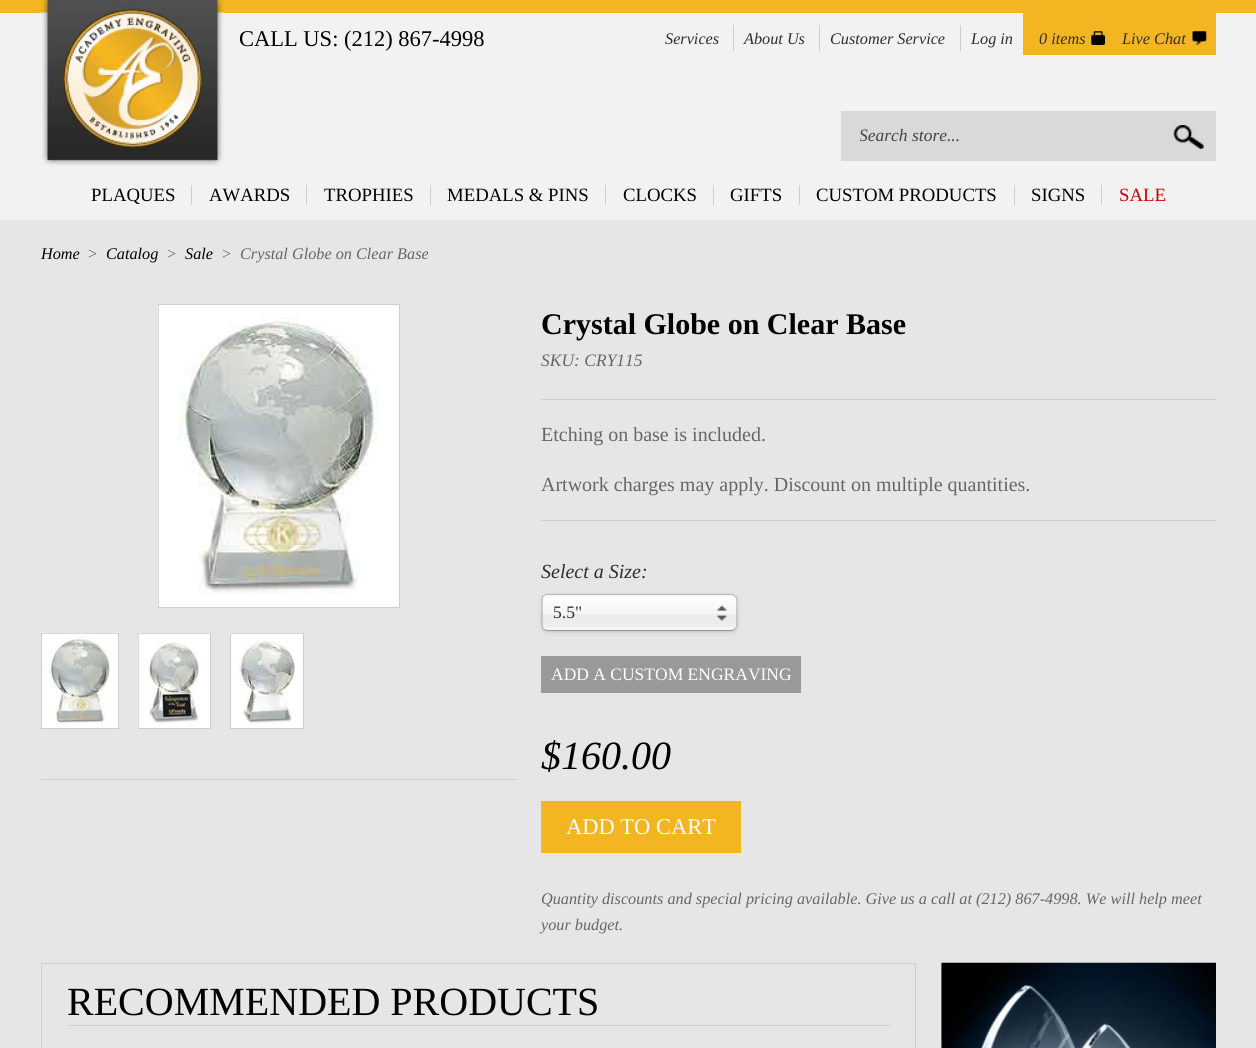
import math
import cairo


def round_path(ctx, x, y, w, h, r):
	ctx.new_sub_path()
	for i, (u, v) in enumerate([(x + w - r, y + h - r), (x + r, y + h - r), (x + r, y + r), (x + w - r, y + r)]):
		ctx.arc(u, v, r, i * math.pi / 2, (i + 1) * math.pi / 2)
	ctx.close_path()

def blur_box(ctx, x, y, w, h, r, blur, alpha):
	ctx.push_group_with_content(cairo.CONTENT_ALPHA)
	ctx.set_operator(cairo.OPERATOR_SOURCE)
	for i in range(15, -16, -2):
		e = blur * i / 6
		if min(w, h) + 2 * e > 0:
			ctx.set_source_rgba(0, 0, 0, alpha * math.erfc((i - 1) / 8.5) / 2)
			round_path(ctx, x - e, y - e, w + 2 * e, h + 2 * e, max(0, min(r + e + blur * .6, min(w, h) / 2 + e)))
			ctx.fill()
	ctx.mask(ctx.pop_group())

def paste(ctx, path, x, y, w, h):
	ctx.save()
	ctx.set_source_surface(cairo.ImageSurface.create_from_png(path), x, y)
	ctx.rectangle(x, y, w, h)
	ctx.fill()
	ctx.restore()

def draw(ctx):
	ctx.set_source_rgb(0.949, 0.949, 0.949)
	ctx.paint()
	ctx.set_source_rgb(0.957, 0.71, 0.133)
	ctx.rectangle(0, 0, 1256, 13)
	ctx.fill()
	paste(ctx, 'media/1.png', 41, 0, 183, 166)
	ctx.select_font_face('Liberation Serif')
	ctx.set_font_size(22.5)
	ctx.set_source_rgb(0, 0, 0)
	ctx.move_to(239, 46)
	ctx.show_text('CALL US: (212) 867-4998')
	ctx.select_font_face('Liberation Serif', cairo.FONT_SLANT_ITALIC)
	ctx.set_font_size(16.25)
	ctx.set_source_rgb(0.18, 0.18, 0.18)
	ctx.move_to(665, 44)
	ctx.show_text('Services')
	ctx.set_source_rgb(0.808, 0.808, 0.808)
	ctx.rectangle(733, 25, 1, 26)
	ctx.fill()
	ctx.set_source_rgb(0.18, 0.18, 0.18)
	ctx.move_to(744, 44)
	ctx.show_text('About Us')
	ctx.set_source_rgb(0.808, 0.808, 0.808)
	ctx.rectangle(819, 25, 1, 26)
	ctx.fill()
	ctx.set_source_rgb(0.18, 0.18, 0.18)
	ctx.move_to(830, 44)
	ctx.show_text('Customer Service')
	ctx.set_source_rgb(0.808, 0.808, 0.808)
	ctx.rectangle(960, 25, 1, 26)
	ctx.fill()
	ctx.set_source_rgb(0.18, 0.18, 0.18)
	ctx.move_to(971, 44)
	ctx.show_text('Log in')
	ctx.set_source_rgb(0.957, 0.71, 0.133)
	ctx.rectangle(1023, 13, 193, 42)
	ctx.fill()
	paste(ctx, 'media/2.png', 1091, 31, 14, 14)
	ctx.set_source_rgb(0.18, 0.18, 0.18)
	ctx.move_to(1039, 44)
	ctx.show_text('0 items')
	paste(ctx, 'media/3.png', 1192, 31, 15, 14)
	ctx.move_to(1122, 44)
	ctx.show_text('Live Chat')
	ctx.set_source_rgb(0.851, 0.851, 0.851)
	ctx.rectangle(841, 111, 375, 50)
	ctx.fill()
	ctx.save()
	ctx.rectangle(860, 126, 300, 20)
	ctx.clip()
	ctx.set_font_size(17.5)
	ctx.set_source_rgb(0.267, 0.267, 0.267)
	ctx.move_to(859, 141)
	ctx.show_text('Search store...')
	ctx.restore()
	paste(ctx, 'media/4.png', 1173, 125, 31, 24)
	ctx.select_font_face('Liberation Serif')
	ctx.set_font_size(18.75)
	ctx.set_source_rgb(0, 0, 0)
	ctx.move_to(91, 201)
	ctx.show_text('PLAQUES')
	ctx.move_to(209, 201)
	ctx.show_text('AWARDS')
	ctx.set_source_rgb(0.808, 0.808, 0.808)
	ctx.rectangle(191, 185, 1, 20)
	ctx.fill()
	ctx.rectangle(306, 185, 1, 20)
	ctx.fill()
	ctx.set_source_rgb(0, 0, 0)
	ctx.move_to(324, 201)
	ctx.show_text('TROPHIES')
	ctx.move_to(447, 201)
	ctx.show_text('MEDALS & PINS')
	ctx.set_source_rgb(0.808, 0.808, 0.808)
	ctx.rectangle(430, 185, 1, 20)
	ctx.fill()
	ctx.rectangle(605, 185, 1, 20)
	ctx.fill()
	ctx.set_source_rgb(0, 0, 0)
	ctx.move_to(623, 201)
	ctx.show_text('CLOCKS')
	ctx.set_source_rgb(0.808, 0.808, 0.808)
	ctx.rectangle(713, 185, 1, 20)
	ctx.fill()
	ctx.set_source_rgb(0, 0, 0)
	ctx.move_to(730, 201)
	ctx.show_text('GIFTS')
	ctx.set_source_rgb(0.808, 0.808, 0.808)
	ctx.rectangle(799, 185, 1, 20)
	ctx.fill()
	ctx.set_source_rgb(0, 0, 0)
	ctx.move_to(816, 201)
	ctx.show_text('CUSTOM PRODUCTS')
	ctx.move_to(1031, 201)
	ctx.show_text('SIGNS')
	ctx.set_source_rgb(0.808, 0.808, 0.808)
	ctx.rectangle(1014, 185, 1, 20)
	ctx.fill()
	ctx.rectangle(1101, 185, 1, 20)
	ctx.fill()
	ctx.set_source_rgb(0.8, 0, 0)
	ctx.move_to(1119, 201)
	ctx.show_text('SALE')
	ctx.set_source_rgb(0.902, 0.902, 0.902)
	ctx.rectangle(0, 220, 1256, 828)
	ctx.fill()
	ctx.select_font_face('Liberation Serif', cairo.FONT_SLANT_ITALIC)
	ctx.set_font_size(16.25)
	ctx.set_source_rgb(0, 0, 0)
	ctx.move_to(41, 259)
	ctx.show_text('Home')
	ctx.set_source_rgb(0.4, 0.4, 0.4)
	ctx.move_to(87, 259)
	ctx.show_text('>')
	ctx.set_source_rgb(0, 0, 0)
	ctx.move_to(106, 259)
	ctx.show_text('Catalog')
	ctx.set_source_rgb(0.4, 0.4, 0.4)
	ctx.move_to(166, 259)
	ctx.show_text('>')
	ctx.set_source_rgb(0, 0, 0)
	ctx.move_to(185, 259)
	ctx.show_text('Sale')
	ctx.set_source_rgb(0.4, 0.4, 0.4)
	ctx.move_to(221, 259)
	ctx.show_text('>')
	ctx.move_to(240, 259)
	ctx.show_text('Crystal Globe on Clear Base')
	ctx.set_source_rgb(1, 1, 1)
	ctx.rectangle(158.5, 304.5, 241, 303)
	ctx.fill_preserve()
	ctx.set_source_rgb(0.808, 0.808, 0.808)
	ctx.set_line_width(1)
	ctx.stroke()
	paste(ctx, 'media/5.png', 158, 305, 221, 301)
	ctx.set_source_rgb(1, 1, 1)
	ctx.rectangle(41.5, 633.5, 77, 95)
	ctx.fill_preserve()
	ctx.set_source_rgb(0.808, 0.808, 0.808)
	ctx.stroke()
	paste(ctx, 'media/6.png', 42, 633, 76, 91)
	ctx.set_source_rgb(1, 1, 1)
	ctx.rectangle(139, 727, 71, 1)
	ctx.fill()
	ctx.rectangle(138.5, 633.5, 72, 95)
	ctx.set_source_rgb(0.808, 0.808, 0.808)
	ctx.stroke()
	paste(ctx, 'media/7.png', 138, 633, 72, 95)
	ctx.set_source_rgb(1, 1, 1)
	ctx.rectangle(230.5, 633.5, 73, 95)
	ctx.fill_preserve()
	ctx.set_source_rgb(0.808, 0.808, 0.808)
	ctx.stroke()
	paste(ctx, 'media/8.png', 231, 633, 72, 91)
	ctx.rectangle(41, 779, 475, 1)
	ctx.fill()
	ctx.select_font_face('Liberation Serif', cairo.FONT_SLANT_NORMAL, cairo.FONT_WEIGHT_BOLD)
	ctx.set_font_size(30)
	ctx.set_source_rgb(0, 0, 0)
	ctx.move_to(541, 334)
	ctx.show_text('Crystal Globe on Clear Base')
	ctx.select_font_face('Liberation Serif', cairo.FONT_SLANT_ITALIC)
	ctx.set_font_size(17.5)
	ctx.set_source_rgb(0.4, 0.4, 0.4)
	ctx.move_to(541, 366)
	ctx.show_text('SKU: CRY115')
	ctx.set_source_rgb(0.808, 0.808, 0.808)
	ctx.rectangle(541, 399, 675, 1)
	ctx.fill()
	ctx.rectangle(541, 520, 675, 1)
	ctx.fill()
	ctx.select_font_face('Liberation Serif')
	ctx.set_font_size(20)
	ctx.set_source_rgb(0.4, 0.4, 0.4)
	ctx.move_to(541, 441)
	ctx.show_text('Etching on base is included.')
	ctx.move_to(541, 491)
	ctx.show_text('Artwork charges may apply. Discount on multiple quantities.')
	ctx.select_font_face('Liberation Serif', cairo.FONT_SLANT_ITALIC)
	ctx.set_source_rgb(0.18, 0.18, 0.18)
	ctx.move_to(541, 578)
	ctx.show_text('Select a Size:')
	ctx.set_source_rgb(0, 0, 0)
	blur_box(ctx, 541, 595, 197, 38, 6, 2, 0.1)
	ctx.save()
	round_path(ctx, 541, 594, 197, 37, 6)
	ctx.clip()
	gradient = cairo.LinearGradient(639, 560, 639, 595)
	gradient.add_color_stop_rgba(0, 1, 1, 1, 1)
	gradient.add_color_stop_rgba(0.53, 0.961, 0.961, 0.961, 1)
	gradient.add_color_stop_rgba(0.54, 0.925, 0.925, 0.925, 1)
	gradient.add_color_stop_rgba(0.91, 0.933, 0.933, 0.933, 1)
	gradient.add_color_stop_rgba(1, 1, 1, 1, 1)
	ctx.set_source(gradient)
	ctx.rectangle(541, 594, 197, 1)
	ctx.fill()
	gradient = cairo.LinearGradient(639, 595, 639, 630)
	gradient.add_color_stop_rgba(0, 1, 1, 1, 1)
	gradient.add_color_stop_rgba(0.53, 0.961, 0.961, 0.961, 1)
	gradient.add_color_stop_rgba(0.54, 0.925, 0.925, 0.925, 1)
	gradient.add_color_stop_rgba(0.91, 0.933, 0.933, 0.933, 1)
	gradient.add_color_stop_rgba(1, 1, 1, 1, 1)
	ctx.set_source(gradient)
	ctx.rectangle(541, 595, 197, 35)
	ctx.fill()
	gradient = cairo.LinearGradient(639, 630, 639, 665)
	gradient.add_color_stop_rgba(0, 1, 1, 1, 1)
	gradient.add_color_stop_rgba(0.53, 0.961, 0.961, 0.961, 1)
	gradient.add_color_stop_rgba(0.54, 0.925, 0.925, 0.925, 1)
	gradient.add_color_stop_rgba(0.91, 0.933, 0.933, 0.933, 1)
	gradient.add_color_stop_rgba(1, 1, 1, 1, 1)
	ctx.set_source(gradient)
	ctx.rectangle(541, 630, 197, 1)
	ctx.fill()
	ctx.restore()
	ctx.new_path()
	ctx.move_to(543.5, 596)
	ctx.curve_to(544.5, 595, 546, 594.5, 547.5, 594.5)
	ctx.line_to(731, 594.5)
	ctx.curve_to(732.5, 594.5, 734, 595, 735, 596)
	ctx.set_source_rgb(0.725, 0.725, 0.725)
	ctx.set_line_width(1.2)
	ctx.stroke()
	ctx.new_path()
	ctx.move_to(735, 596)
	ctx.curve_to(736.5, 597, 737, 598.5, 737, 600)
	ctx.line_to(737, 625)
	ctx.curve_to(737, 626.5, 736.5, 628, 735, 629)
	ctx.set_source_rgb(0.682, 0.682, 0.682)
	ctx.stroke()
	ctx.new_path()
	ctx.move_to(735, 629)
	ctx.curve_to(734, 630, 732.5, 630.5, 731, 630.5)
	ctx.line_to(547.5, 630.5)
	ctx.curve_to(546, 630.5, 544.5, 630, 543.5, 629)
	ctx.set_source_rgb(0.608, 0.608, 0.608)
	ctx.stroke()
	ctx.new_path()
	ctx.move_to(543.5, 629)
	ctx.curve_to(542.5, 628, 542, 626.5, 542, 625)
	ctx.line_to(542, 600)
	ctx.curve_to(542, 598.5, 542.5, 597, 543.5, 596)
	ctx.set_source_rgb(0.682, 0.682, 0.682)
	ctx.stroke()
	paste(ctx, 'media/9.png', 716, 605, 12, 16)
	ctx.select_font_face('Liberation Serif')
	ctx.set_font_size(17.5)
	ctx.set_source_rgb(0.18, 0.18, 0.18)
	ctx.move_to(553, 618)
	ctx.show_text('5.5"')
	ctx.set_source_rgb(0.6, 0.6, 0.6)
	ctx.rectangle(541, 656, 260, 37)
	ctx.fill()
	ctx.set_source_rgb(1, 1, 1)
	ctx.move_to(551, 680)
	ctx.show_text('ADD A CUSTOM ENGRAVING')
	ctx.select_font_face('Liberation Serif', cairo.FONT_SLANT_ITALIC)
	ctx.set_font_size(40)
	ctx.set_source_rgb(0, 0, 0)
	ctx.move_to(541, 769)
	ctx.show_text('$160.00')
	ctx.set_source_rgb(0.957, 0.71, 0.133)
	ctx.rectangle(541, 801, 200, 52)
	ctx.fill()
	ctx.select_font_face('Liberation Serif')
	ctx.set_font_size(22.5)
	ctx.set_source_rgb(1, 1, 1)
	ctx.move_to(566, 834)
	ctx.show_text('ADD TO CART')
	ctx.select_font_face('Liberation Serif', cairo.FONT_SLANT_ITALIC)
	ctx.set_font_size(16.25)
	ctx.set_source_rgb(0.4, 0.4, 0.4)
	ctx.move_to(541, 904)
	ctx.show_text('Quantity discounts and special pricing available. Give us a call at (212) 867-4998. We will help meet')
	ctx.move_to(541, 930)
	ctx.show_text('your budget.')
	ctx.rectangle(41.5, 963.5, 874, 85)
	ctx.set_source_rgb(0.808, 0.808, 0.808)
	ctx.set_line_width(1)
	ctx.stroke()
	ctx.rectangle(68, 1025, 822, 1)
	ctx.fill()
	ctx.select_font_face('Liberation Serif')
	ctx.set_font_size(40)
	ctx.set_source_rgb(0, 0, 0)
	ctx.move_to(67, 1015)
	ctx.show_text('RECOMMENDED PRODUCTS')
	paste(ctx, 'media/10.png', 941, 962, 275, 86)


surface = cairo.ImageSurface(cairo.FORMAT_RGB24, 1256, 1048)
ctx = cairo.Context(surface)
options = cairo.FontOptions()
options.set_hint_metrics(cairo.HINT_METRICS_OFF)
options.set_hint_style(cairo.HINT_STYLE_NONE)
ctx.set_font_options(options)
ctx.set_miter_limit(4)
draw(ctx)
surface.write_to_png('image.png')
